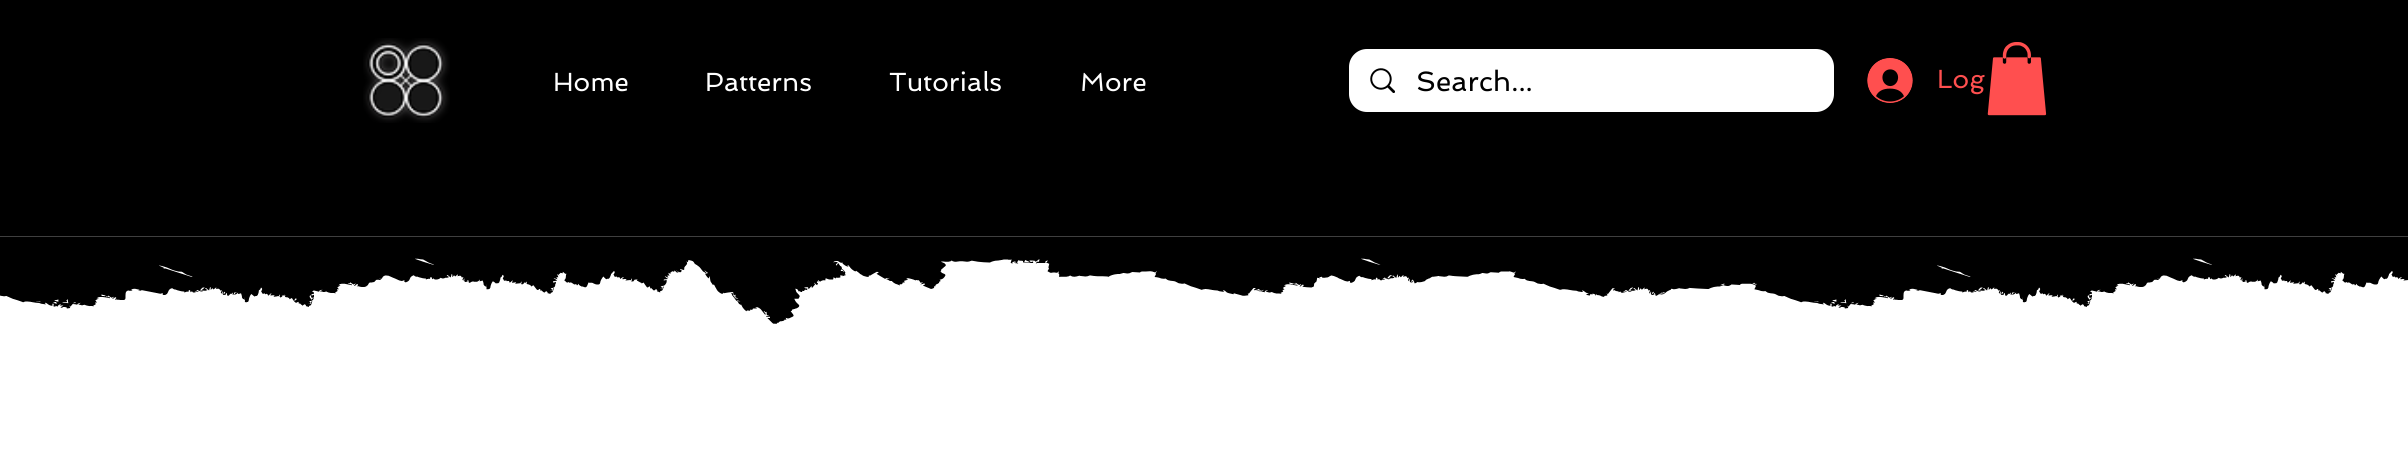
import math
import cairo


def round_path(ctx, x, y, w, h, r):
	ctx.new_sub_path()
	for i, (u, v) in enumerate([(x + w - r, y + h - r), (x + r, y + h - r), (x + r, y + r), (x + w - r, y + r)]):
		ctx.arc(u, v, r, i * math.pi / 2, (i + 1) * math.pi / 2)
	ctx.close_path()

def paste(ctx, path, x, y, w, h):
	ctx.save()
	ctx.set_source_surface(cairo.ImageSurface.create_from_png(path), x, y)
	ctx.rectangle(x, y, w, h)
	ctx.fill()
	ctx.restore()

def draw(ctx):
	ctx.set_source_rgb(1, 1, 1)
	ctx.paint()
	ctx.set_source_rgb(0, 0, 0)
	ctx.rectangle(0, 0, 2408, 236)
	ctx.fill()
	paste(ctx, 'media/1.png', 363, 38, 87, 85)
	ctx.select_font_face('Spinnaker')
	ctx.set_font_size(26.25)
	ctx.set_source_rgb(1, 1, 1)
	for x, y, s in [
		(553, 91, 'Home'),
		(705, 91, 'Patterns'),
		(889, 91, 'Tutorials'),
		(1080, 91, 'More'),
	]:
		ctx.move_to(x, y)
		ctx.show_text(s)
	round_path(ctx, 1349, 49, 485, 63, 18)
	ctx.fill()
	paste(ctx, 'media/2.png', 1370, 68, 25, 25)
	ctx.set_font_size(28)
	ctx.set_source_rgb(0, 0, 0)
	ctx.move_to(1416, 91)
	ctx.show_text('Search...')
	paste(ctx, 'media/3.png', 1867, 58, 46, 45)
	ctx.set_font_size(26.25)
	ctx.set_source_rgb(1, 0.31, 0.31)
	ctx.move_to(1937, 88)
	ctx.show_text('Log')
	paste(ctx, 'media/4.png', 1987, 42, 60, 74)
	paste(ctx, 'media/5.png', 0, 236, 2408, 88)


surface = cairo.ImageSurface(cairo.FORMAT_RGB24, 2408, 450)
ctx = cairo.Context(surface)
options = cairo.FontOptions()
options.set_hint_metrics(cairo.HINT_METRICS_OFF)
options.set_hint_style(cairo.HINT_STYLE_NONE)
ctx.set_font_options(options)
ctx.set_miter_limit(4)
draw(ctx)
surface.write_to_png('image.png')
